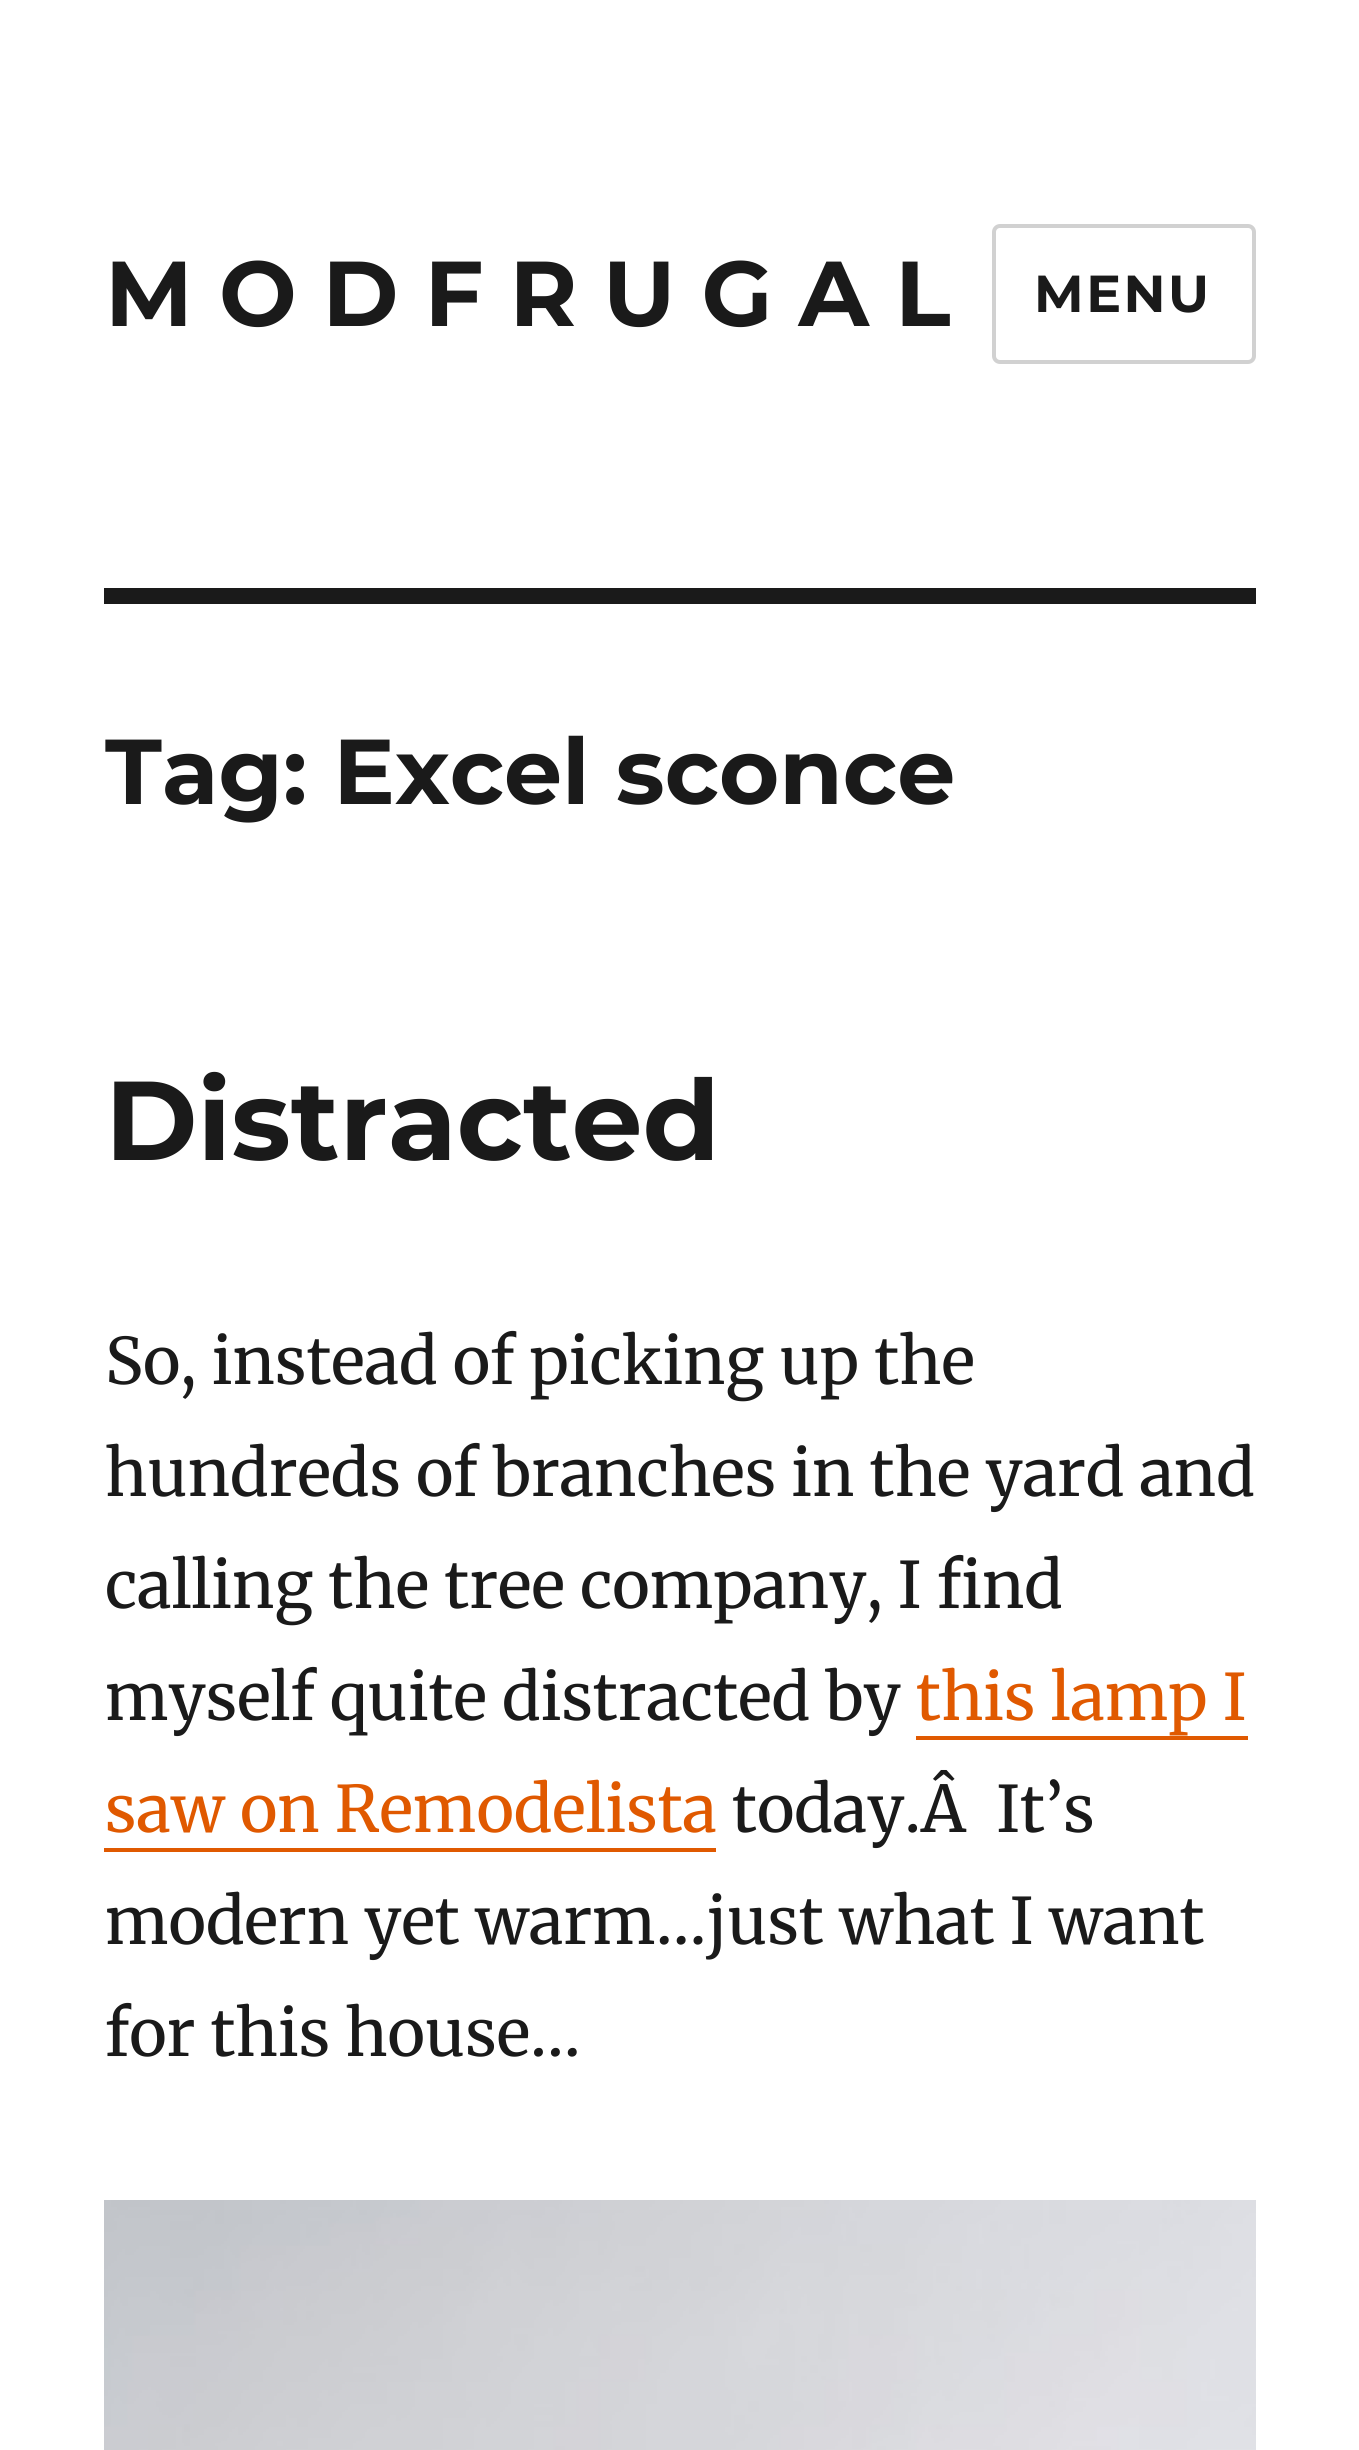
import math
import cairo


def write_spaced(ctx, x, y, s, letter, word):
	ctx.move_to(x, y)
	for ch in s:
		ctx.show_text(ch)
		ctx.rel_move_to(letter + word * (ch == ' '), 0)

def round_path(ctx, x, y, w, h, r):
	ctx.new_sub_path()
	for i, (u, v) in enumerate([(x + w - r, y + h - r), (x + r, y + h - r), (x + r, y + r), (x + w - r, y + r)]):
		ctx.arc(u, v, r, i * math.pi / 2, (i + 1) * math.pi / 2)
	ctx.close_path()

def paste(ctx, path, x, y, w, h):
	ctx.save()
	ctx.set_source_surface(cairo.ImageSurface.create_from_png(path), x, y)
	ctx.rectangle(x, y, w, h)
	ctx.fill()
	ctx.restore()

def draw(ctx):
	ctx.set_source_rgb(1, 1, 1)
	ctx.paint()
	ctx.select_font_face('Montserrat', cairo.FONT_SLANT_NORMAL, cairo.FONT_WEIGHT_BOLD)
	ctx.set_font_size(92)
	ctx.set_source_rgb(0.102, 0.102, 0.102)
	ctx.move_to(105, 326)
	ctx.show_text('M O D F R U G A L')
	round_path(ctx, 994, 226, 260, 136, 6)
	ctx.set_source_rgb(0.82, 0.82, 0.82)
	ctx.set_line_width(4)
	ctx.stroke()
	ctx.set_font_size(52)
	ctx.set_source_rgb(0.102, 0.102, 0.102)
	write_spaced(ctx, 1034, 312, 'MENU', 2.5, 0)
	ctx.rectangle(104, 588, 1152, 16)
	ctx.fill()
	ctx.set_font_size(92)
	ctx.move_to(105, 804)
	ctx.show_text('Tag: Excel sconce')
	ctx.set_font_size(112)
	ctx.move_to(105, 1160)
	ctx.show_text('Distracted')
	ctx.select_font_face('Merriweather')
	ctx.set_font_size(64)
	for x, y, s in [
		(105, 1384, 'So, instead of picking up the'),
		(105, 1496, 'hundreds of branches in the yard and'),
		(105, 1608, 'calling the tree company, I find'),
		(105, 1720, 'myself quite distracted by'),
	]:
		ctx.move_to(x, y)
		ctx.show_text(s)
	ctx.set_source_rgb(0.878, 0.349, 0)
	ctx.move_to(916, 1720)
	ctx.show_text('this lamp I')
	ctx.rectangle(916, 1736, 332, 4)
	ctx.fill()
	ctx.move_to(105, 1832)
	ctx.show_text('saw on Remodelista')
	ctx.rectangle(104, 1848, 612, 4)
	ctx.fill()
	ctx.set_source_rgb(0.102, 0.102, 0.102)
	for x, y, s in [
		(732, 1832, 'today.Â  It’s'),
		(105, 1944, 'modern yet warm…just what I want'),
		(105, 2056, 'for this house…'),
	]:
		ctx.move_to(x, y)
		ctx.show_text(s)
	paste(ctx, 'media/1.png', 104, 2200, 1152, 250)


surface = cairo.ImageSurface(cairo.FORMAT_RGB24, 1359, 2450)
ctx = cairo.Context(surface)
options = cairo.FontOptions()
options.set_hint_metrics(cairo.HINT_METRICS_OFF)
options.set_hint_style(cairo.HINT_STYLE_NONE)
ctx.set_font_options(options)
ctx.set_miter_limit(4)
draw(ctx)
surface.write_to_png('image.png')
